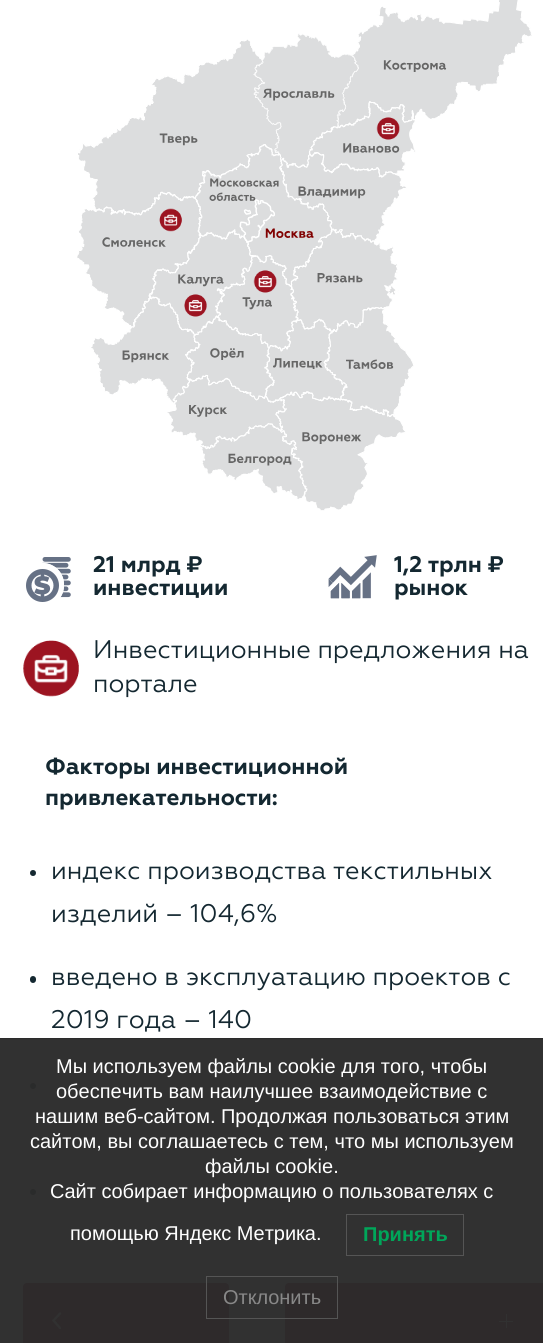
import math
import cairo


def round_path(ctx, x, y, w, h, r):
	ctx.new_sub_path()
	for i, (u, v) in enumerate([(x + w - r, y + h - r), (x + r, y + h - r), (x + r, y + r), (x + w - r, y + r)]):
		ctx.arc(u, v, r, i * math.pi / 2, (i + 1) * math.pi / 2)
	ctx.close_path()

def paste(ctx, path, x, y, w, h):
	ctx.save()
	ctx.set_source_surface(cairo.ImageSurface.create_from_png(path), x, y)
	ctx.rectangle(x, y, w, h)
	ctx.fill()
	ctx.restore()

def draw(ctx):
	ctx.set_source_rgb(1, 1, 1)
	ctx.paint()
	ctx.set_source_rgb(0.192, 0.192, 0.192)
	ctx.rectangle(0, 1039, 543, 304)
	ctx.fill()
	paste(ctx, 'media/1.png', 77, 0, 455, 511)
	paste(ctx, 'media/2.png', 26, 557, 45, 45)
	ctx.select_font_face('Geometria', cairo.FONT_SLANT_NORMAL, cairo.FONT_WEIGHT_BOLD)
	ctx.set_font_size(22.6)
	ctx.set_source_rgb(0.082, 0.157, 0.192)
	ctx.move_to(93, 572)
	ctx.show_text('21 млрд ₽')
	ctx.move_to(93, 595)
	ctx.show_text('инвестиции')
	paste(ctx, 'media/3.png', 328, 555, 49, 44)
	ctx.move_to(394, 572)
	ctx.show_text('1,2 трлн ₽')
	ctx.move_to(394, 595)
	ctx.show_text('рынок')
	paste(ctx, 'media/4.png', 23, 640, 56, 57)
	ctx.select_font_face('Geometria')
	ctx.set_font_size(25.5)
	ctx.move_to(93, 658)
	ctx.show_text('Инвестиционные предложения на')
	ctx.move_to(93, 692)
	ctx.show_text('портале')
	ctx.select_font_face('Geometria', cairo.FONT_SLANT_NORMAL, cairo.FONT_WEIGHT_BOLD)
	ctx.set_font_size(22.6)
	ctx.move_to(45, 774)
	ctx.show_text('Факторы инвестиционной')
	ctx.move_to(45, 805)
	ctx.show_text('привлекательности:')
	ctx.new_path()
	ctx.arc(33, 873, 3, 0, 2 * math.pi)
	ctx.fill()
	ctx.select_font_face('Geometria')
	ctx.set_font_size(25.5)
	ctx.move_to(51, 879)
	ctx.show_text('индекс производства текстильных')
	ctx.move_to(51, 922)
	ctx.show_text('изделий – 104,6%')
	round_path(ctx, 30, 976, 6, 7, 3)
	ctx.fill()
	ctx.move_to(51, 985)
	ctx.show_text('введено в эксплуатацию проектов с')
	ctx.move_to(51, 1028)
	ctx.show_text('2019 года – 140')
	ctx.set_source_rgb(0.165, 0.169, 0.169)
	ctx.new_path()
	ctx.arc(33, 1086, 3, 0, 2 * math.pi)
	ctx.fill()
	ctx.arc(33, 1192, 3, 0, 2 * math.pi)
	ctx.fill()
	ctx.set_source_rgb(0.18, 0.165, 0.169)
	round_path(ctx, 23, 1283, 206, 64, 4)
	ctx.fill()
	ctx.new_path()
	ctx.move_to(60, 1328)
	ctx.line_to(53.5, 1320.5)
	ctx.line_to(60, 1313.5)
	ctx.set_source_rgb(0.192, 0.192, 0.192)
	ctx.set_line_width(2.3)
	ctx.set_line_cap(cairo.LINE_CAP_ROUND)
	ctx.stroke()
	ctx.set_source_rgb(0.18, 0.165, 0.169)
	round_path(ctx, 285, 1283, 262, 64, 4)
	ctx.fill()
	ctx.set_source_rgb(0.192, 0.192, 0.192)
	ctx.rectangle(506, 1314, 1, 14)
	ctx.rectangle(499, 1321, 14, 1)
	ctx.fill()
	ctx.set_source_rgb(0.169, 0.169, 0.169)
	ctx.rectangle(0, 1038, 543, 1)
	ctx.fill()
	ctx.select_font_face('Liberation Sans')
	ctx.set_font_size(20)
	ctx.set_source_rgb(1, 1, 1)
	for x, y, s in [
		(56, 1073, 'Мы используем файлы cookie для того, чтобы'),
		(56, 1098, 'обеспечить вам наилучшее взаимодействие с'),
		(35, 1123, 'нашим веб-сайтом. Продолжая пользоваться этим'),
		(30, 1148, 'сайтом, вы соглашаетесь с тем, что мы используем'),
		(205, 1173, 'файлы cookie.'),
		(50, 1198, 'Сайт собирает информацию о пользователях с'),
		(70, 1240, 'помощью Яндекс Метрика.'),
	]:
		ctx.move_to(x, y)
		ctx.show_text(s)
	ctx.rectangle(346.5, 1214.5, 117, 41)
	ctx.set_source_rgb(0.333, 0.333, 0.333)
	ctx.set_line_width(1)
	ctx.set_line_cap(cairo.LINE_CAP_BUTT)
	ctx.stroke()
	ctx.select_font_face('Liberation Sans', cairo.FONT_SLANT_NORMAL, cairo.FONT_WEIGHT_BOLD)
	ctx.set_source_rgb(0, 0.651, 0.353)
	ctx.move_to(363, 1241)
	ctx.show_text('Принять')
	ctx.rectangle(206.5, 1276.5, 131, 42)
	ctx.set_source_rgb(0.333, 0.333, 0.333)
	ctx.stroke()
	ctx.select_font_face('Liberation Sans')
	ctx.set_source_rgb(0.533, 0.533, 0.533)
	ctx.move_to(223, 1304)
	ctx.show_text('Отклонить')


surface = cairo.ImageSurface(cairo.FORMAT_RGB24, 543, 1343)
ctx = cairo.Context(surface)
options = cairo.FontOptions()
options.set_hint_metrics(cairo.HINT_METRICS_OFF)
options.set_hint_style(cairo.HINT_STYLE_NONE)
ctx.set_font_options(options)
ctx.set_miter_limit(4)
draw(ctx)
surface.write_to_png('image.png')
